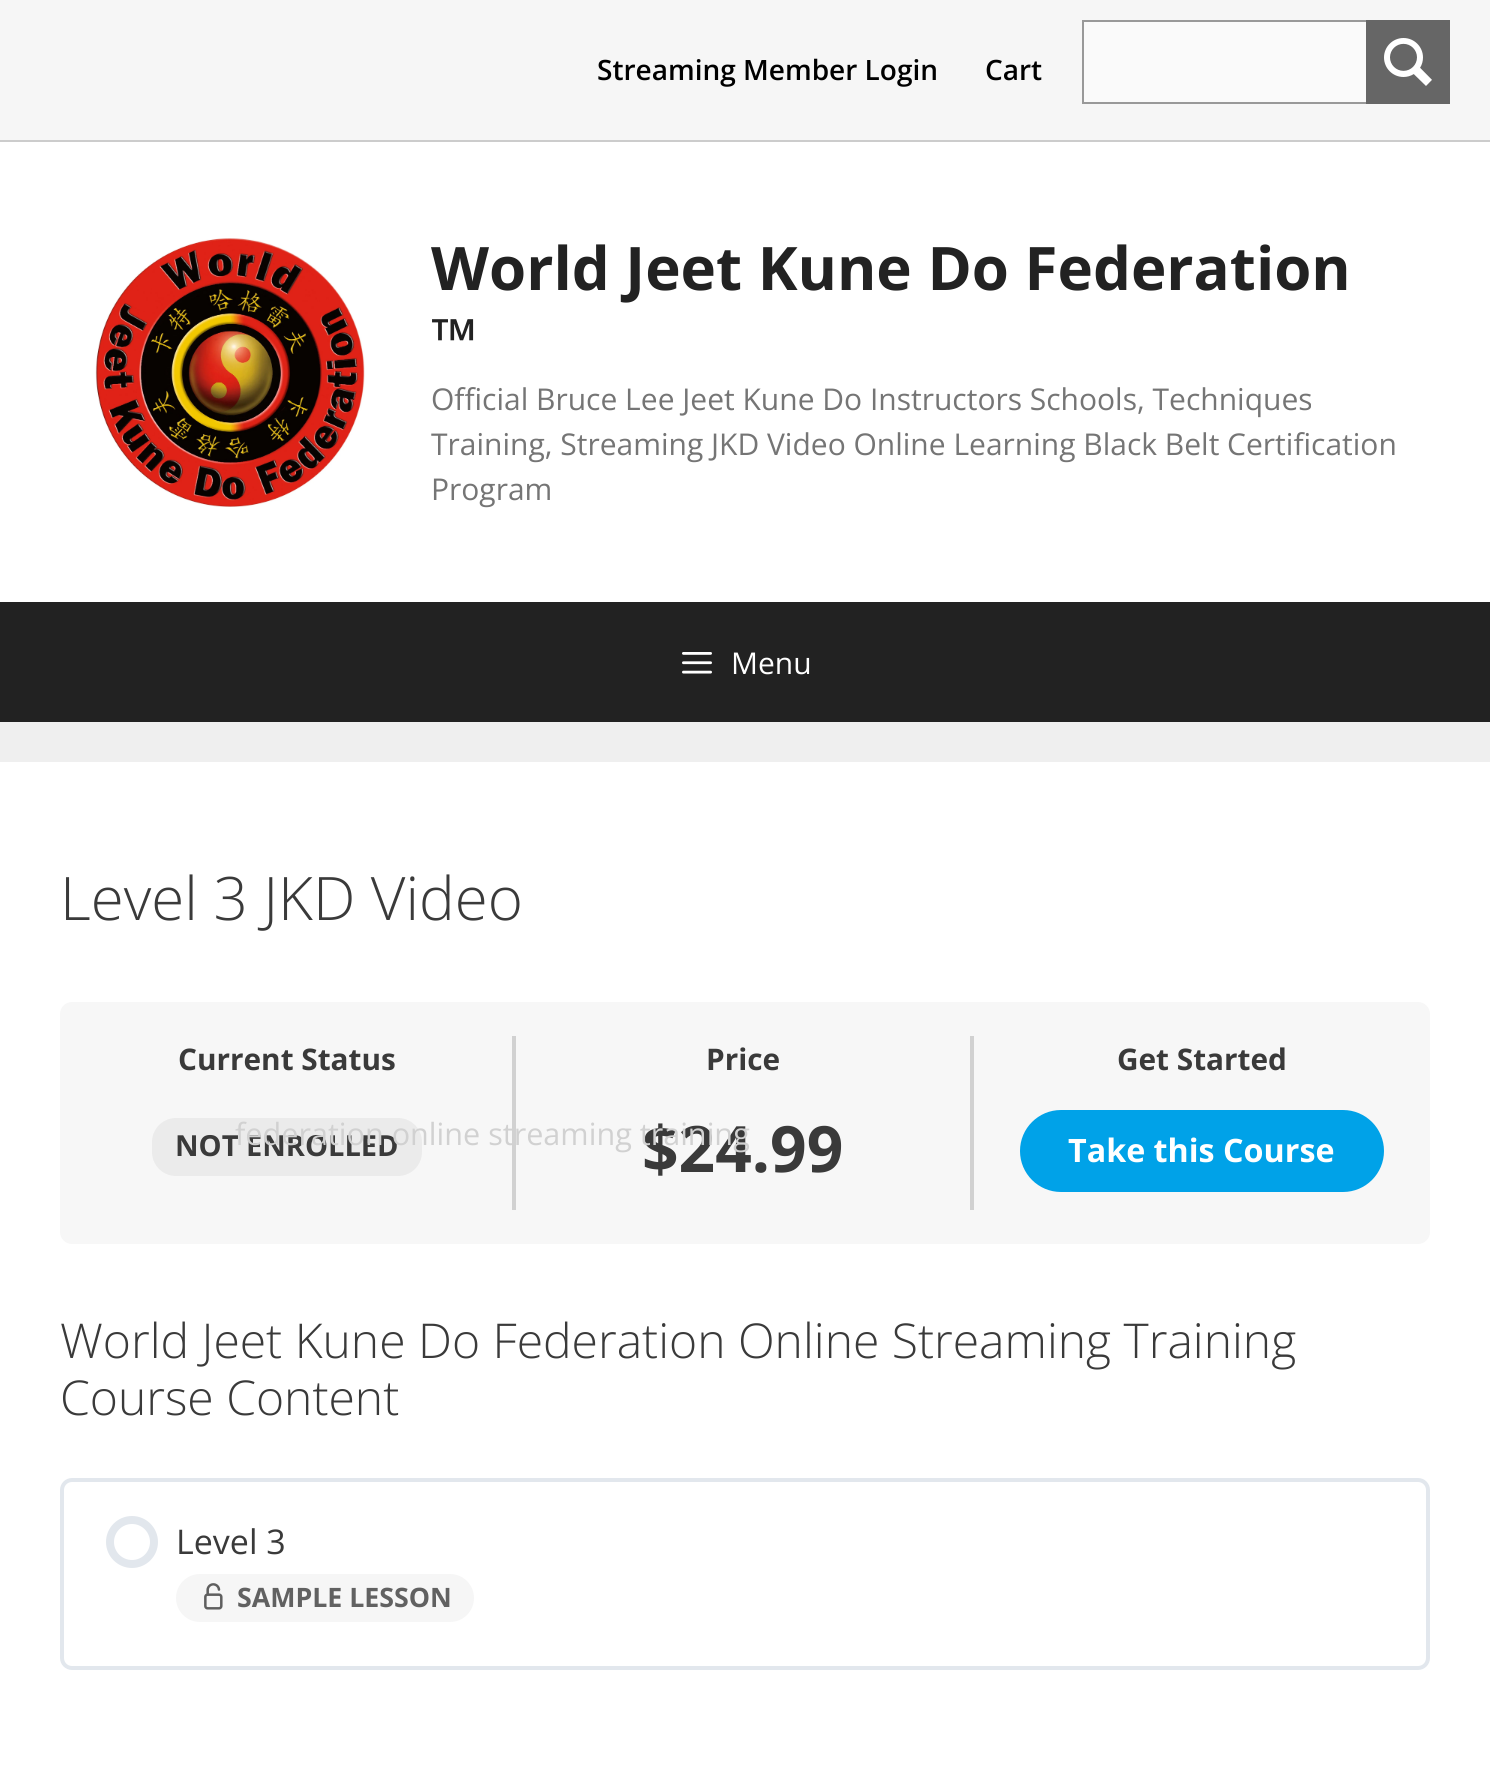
import math
import cairo


def round_path(ctx, x, y, w, h, r):
	ctx.new_sub_path()
	for i, (u, v) in enumerate([(x + w - r, y + h - r), (x + r, y + h - r), (x + r, y + r), (x + w - r, y + r)]):
		ctx.arc(u, v, r, i * math.pi / 2, (i + 1) * math.pi / 2)
	ctx.close_path()

def paste(ctx, path, x, y, w, h):
	ctx.save()
	ctx.set_source_surface(cairo.ImageSurface.create_from_png(path), x, y)
	ctx.rectangle(x, y, w, h)
	ctx.fill()
	ctx.restore()

def draw(ctx):
	ctx.set_source_rgb(0.937, 0.937, 0.937)
	ctx.paint()
	ctx.set_source_rgb(0.961, 0.961, 0.961)
	ctx.rectangle(0, 0, 1490, 140)
	ctx.fill()
	ctx.set_source_rgb(0.8, 0.8, 0.8)
	ctx.rectangle(0, 140, 1490, 2)
	ctx.fill()
	ctx.select_font_face('Open Sans SemiBold')
	ctx.set_font_size(28)
	ctx.set_source_rgb(0, 0, 0)
	ctx.move_to(597, 80)
	ctx.show_text('Streaming Member Login')
	ctx.move_to(985, 80)
	ctx.show_text('Cart')
	ctx.set_source_rgb(0.98, 0.98, 0.98)
	ctx.rectangle(1084, 22, 282, 80)
	ctx.fill()
	ctx.rectangle(1083, 21, 366, 82)
	ctx.set_source_rgb(0.6, 0.6, 0.6)
	ctx.stroke()
	ctx.set_source_rgb(0.4, 0.4, 0.4)
	ctx.rectangle(1366, 20, 84, 84)
	ctx.fill()
	paste(ctx, 'media/1.png', 1384, 38, 48, 48)
	ctx.set_source_rgb(1, 1, 1)
	ctx.rectangle(0, 142, 1490, 460)
	ctx.fill()
	paste(ctx, 'media/2.png', 95, 238, 270, 269)
	ctx.select_font_face('Open Sans', cairo.FONT_SLANT_NORMAL, cairo.FONT_WEIGHT_BOLD)
	ctx.set_font_size(60)
	ctx.set_source_rgb(0.133, 0.133, 0.133)
	ctx.move_to(431, 290)
	ctx.show_text('World Jeet Kune Do Federation')
	ctx.move_to(431, 362)
	ctx.show_text('™')
	ctx.select_font_face('Open Sans')
	ctx.set_font_size(30)
	ctx.set_source_rgb(0.459, 0.459, 0.459)
	for x, y, s in [
		(431, 410, 'Official Bruce Lee Jeet Kune Do Instructors Schools, Techniques'),
		(431, 455, 'Training, Streaming JKD Video Online Learning Black Belt Certification'),
		(431, 500, 'Program'),
	]:
		ctx.move_to(x, y)
		ctx.show_text(s)
	ctx.set_source_rgb(0.133, 0.133, 0.133)
	ctx.rectangle(0, 602, 1490, 120)
	ctx.fill()
	paste(ctx, 'media/3.png', 682, 652, 30, 22)
	ctx.set_source_rgb(1, 1, 1)
	ctx.move_to(731, 674)
	ctx.show_text('Menu')
	ctx.rectangle(0, 762, 1490, 1029)
	ctx.fill()
	ctx.select_font_face('Open Sans Light')
	ctx.set_font_size(60)
	ctx.set_source_rgb(0.227, 0.227, 0.227)
	ctx.move_to(60, 920)
	ctx.show_text('Level 3 JKD Video')
	ctx.set_source_rgb(0.965, 0.965, 0.965)
	round_path(ctx, 60, 1002, 1370, 242, 12)
	ctx.fill()
	ctx.set_source_rgb(0.82, 0.82, 0.82)
	ctx.rectangle(512, 1036, 4, 174)
	ctx.fill()
	ctx.select_font_face('Open Sans', cairo.FONT_SLANT_NORMAL, cairo.FONT_WEIGHT_BOLD)
	ctx.set_font_size(29.75)
	ctx.set_source_rgb(0.227, 0.227, 0.227)
	ctx.move_to(178, 1070)
	ctx.show_text('Current Status')
	ctx.set_source_rgb(0.918, 0.918, 0.918)
	round_path(ctx, 152, 1118, 270, 58, 24)
	ctx.fill()
	ctx.set_font_size(29)
	ctx.set_source_rgb(0.227, 0.227, 0.227)
	ctx.move_to(175, 1156)
	ctx.show_text('NOT ENROLLED')
	ctx.set_source_rgb(0.82, 0.82, 0.82)
	ctx.rectangle(970, 1036, 4, 174)
	ctx.fill()
	ctx.set_font_size(29.75)
	ctx.set_source_rgb(0.227, 0.227, 0.227)
	ctx.move_to(706, 1070)
	ctx.show_text('Price')
	ctx.set_font_size(64)
	ctx.move_to(642, 1172)
	ctx.show_text('$24.99')
	ctx.set_font_size(29.75)
	ctx.move_to(1117, 1070)
	ctx.show_text('Get Started')
	ctx.set_source_rgb(0, 0.635, 0.91)
	round_path(ctx, 1020, 1110, 364, 82, 41)
	ctx.fill()
	ctx.set_font_size(32.25)
	ctx.set_source_rgb(1, 1, 1)
	ctx.move_to(1068, 1162)
	ctx.show_text('Take this Course')
	ctx.select_font_face('Open Sans Light')
	ctx.set_font_size(48)
	ctx.set_source_rgb(0.227, 0.227, 0.227)
	ctx.move_to(60, 1358)
	ctx.show_text('World Jeet Kune Do Federation Online Streaming Training')
	ctx.move_to(60, 1415)
	ctx.show_text('Course Content')
	round_path(ctx, 62, 1480, 1366, 188, 10)
	ctx.set_source_rgb(0.886, 0.906, 0.929)
	ctx.set_line_width(4)
	ctx.stroke()
	ctx.arc(132, 1542, 22, 0, 2 * math.pi)
	ctx.set_line_width(8)
	ctx.stroke()
	ctx.select_font_face('Open Sans')
	ctx.set_font_size(34)
	ctx.set_source_rgb(0.227, 0.227, 0.227)
	ctx.move_to(176, 1554)
	ctx.show_text('Level 3')
	ctx.set_source_rgb(0.961, 0.961, 0.961)
	round_path(ctx, 176, 1574, 298, 48, 24)
	ctx.fill()
	paste(ctx, 'media/4.png', 204, 1583, 19, 27)
	ctx.select_font_face('Open Sans', cairo.FONT_SLANT_NORMAL, cairo.FONT_WEIGHT_BOLD)
	ctx.set_font_size(26.75)
	ctx.set_source_rgb(0.38, 0.38, 0.38)
	ctx.move_to(237, 1607)
	ctx.show_text('SAMPLE LESSON')
	ctx.select_font_face('Open Sans')
	ctx.set_font_size(30.6)
	ctx.set_source_rgb(0.82, 0.82, 0.82)
	ctx.move_to(235, 1145)
	ctx.show_text('federation online streaming training')


surface = cairo.ImageSurface(cairo.FORMAT_RGB24, 1490, 1791)
ctx = cairo.Context(surface)
options = cairo.FontOptions()
options.set_hint_metrics(cairo.HINT_METRICS_OFF)
options.set_hint_style(cairo.HINT_STYLE_NONE)
ctx.set_font_options(options)
ctx.set_miter_limit(4)
draw(ctx)
surface.write_to_png('image.png')
